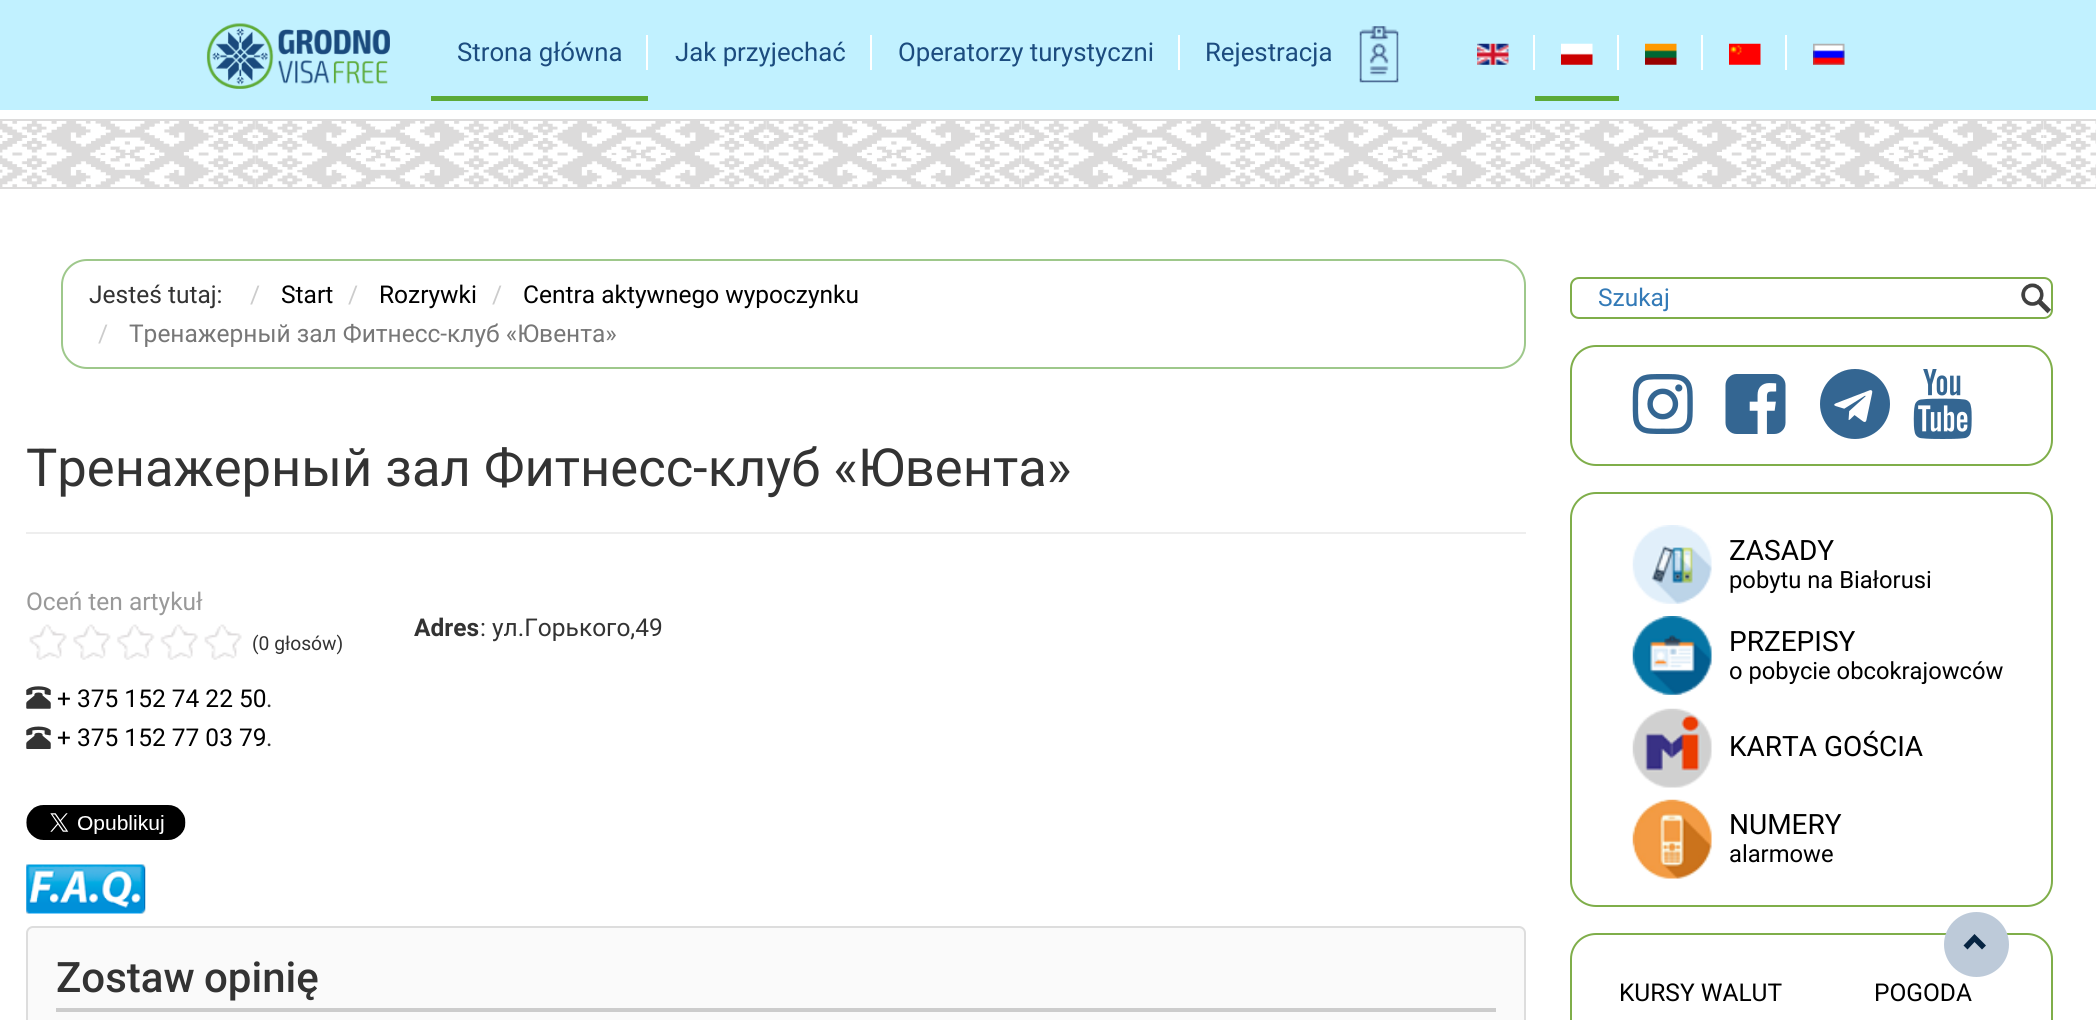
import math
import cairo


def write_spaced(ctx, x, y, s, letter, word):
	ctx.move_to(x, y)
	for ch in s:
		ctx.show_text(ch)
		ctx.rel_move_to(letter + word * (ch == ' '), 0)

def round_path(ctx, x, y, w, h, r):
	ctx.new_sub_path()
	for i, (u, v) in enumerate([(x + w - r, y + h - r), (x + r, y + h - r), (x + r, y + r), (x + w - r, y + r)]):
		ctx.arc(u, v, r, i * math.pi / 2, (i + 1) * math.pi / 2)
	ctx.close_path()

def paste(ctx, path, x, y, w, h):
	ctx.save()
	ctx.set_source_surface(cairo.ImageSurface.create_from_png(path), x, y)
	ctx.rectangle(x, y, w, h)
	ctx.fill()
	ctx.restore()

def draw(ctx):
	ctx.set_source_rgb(1, 1, 1)
	ctx.paint()
	ctx.set_source_rgb(0.757, 0.945, 1)
	ctx.rectangle(0, 0, 2096, 110)
	ctx.fill()
	paste(ctx, 'media/1.png', 206, 23, 184, 66)
	ctx.set_source_rgb(0.357, 0.667, 0.22)
	ctx.rectangle(431, 96, 217, 5)
	ctx.fill()
	ctx.select_font_face('Roboto')
	ctx.set_font_size(25.75)
	ctx.set_source_rgb(0.11, 0.298, 0.498)
	ctx.move_to(457, 61)
	ctx.show_text('Strona główna')
	ctx.set_source_rgb(1, 1, 1)
	ctx.rectangle(646, 35, 2, 35)
	ctx.fill()
	ctx.set_source_rgb(0.11, 0.298, 0.498)
	ctx.move_to(675, 61)
	ctx.show_text('Jak przyjechać')
	ctx.set_source_rgb(1, 1, 1)
	ctx.rectangle(870, 35, 2, 35)
	ctx.fill()
	ctx.set_source_rgb(0.11, 0.298, 0.498)
	ctx.move_to(898, 61)
	ctx.show_text('Operatorzy turystyczni')
	ctx.set_source_rgb(1, 1, 1)
	ctx.rectangle(1178, 35, 2, 35)
	ctx.fill()
	ctx.set_source_rgb(0.11, 0.298, 0.498)
	ctx.move_to(1205, 61)
	ctx.show_text('Rejestracja')
	paste(ctx, 'media/2.png', 1359, 26, 40, 57)
	paste(ctx, 'media/3.png', 1477, 43, 32, 22)
	ctx.set_source_rgb(1, 1, 1)
	ctx.rectangle(1533, 35, 2, 35)
	ctx.fill()
	ctx.set_source_rgb(0.357, 0.667, 0.22)
	ctx.rectangle(1535, 96, 84, 5)
	ctx.fill()
	paste(ctx, 'media/4.png', 1561, 43, 32, 22)
	ctx.set_source_rgb(1, 1, 1)
	ctx.rectangle(1617, 35, 2, 35)
	ctx.fill()
	paste(ctx, 'media/5.png', 1645, 43, 32, 22)
	ctx.rectangle(1701, 35, 2, 35)
	ctx.fill()
	paste(ctx, 'media/6.png', 1729, 43, 32, 22)
	ctx.rectangle(1785, 35, 2, 35)
	ctx.fill()
	paste(ctx, 'media/7.png', 1813, 43, 32, 22)
	paste(ctx, 'media/8.png', 0, 121, 2096, 66)
	ctx.set_source_rgb(0.863, 0.859, 0.859)
	ctx.rectangle(0, 119, 2096, 2)
	ctx.fill()
	ctx.rectangle(0, 187, 2096, 2)
	ctx.fill()
	round_path(ctx, 62, 260, 1463, 108, 25)
	ctx.set_source_rgb(0.62, 0.784, 0.545)
	ctx.stroke()
	ctx.set_font_size(24.5)
	ctx.set_source_rgb(0.2, 0.2, 0.2)
	ctx.move_to(89, 303)
	ctx.show_text('Jesteś tutaj:')
	ctx.set_source_rgb(0.8, 0.8, 0.8)
	ctx.move_to(250, 303)
	ctx.show_text('/')
	ctx.set_source_rgb(0, 0, 0)
	ctx.move_to(281, 303)
	ctx.show_text('Start')
	ctx.set_source_rgb(0.8, 0.8, 0.8)
	ctx.move_to(348, 303)
	ctx.show_text('/')
	ctx.set_source_rgb(0, 0, 0)
	ctx.move_to(379, 303)
	ctx.show_text('Rozrywki')
	ctx.set_source_rgb(0.8, 0.8, 0.8)
	ctx.move_to(492, 303)
	ctx.show_text('/')
	ctx.set_source_rgb(0, 0, 0)
	ctx.move_to(523, 303)
	ctx.show_text('Centra aktywnego wypoczynku')
	ctx.set_source_rgb(0.8, 0.8, 0.8)
	ctx.move_to(98, 342)
	ctx.show_text('/')
	ctx.set_source_rgb(0.467, 0.467, 0.467)
	ctx.move_to(129, 342)
	ctx.show_text('Тренажерный зал Фитнесс-клуб «Ювента»')
	ctx.set_font_size(52.5)
	ctx.set_source_rgb(0.2, 0.2, 0.2)
	ctx.move_to(26, 486)
	ctx.show_text('Тренажерный зал Фитнесс-клуб «Ювента»')
	ctx.set_source_rgb(0.933, 0.933, 0.933)
	ctx.rectangle(26, 532, 1500, 2)
	ctx.fill()
	ctx.set_font_size(24.5)
	ctx.set_source_rgb(0.6, 0.6, 0.6)
	ctx.move_to(26, 610)
	ctx.show_text('Oceń ten artykuł')
	paste(ctx, 'media/9.png', 29, 624, 213, 36)
	ctx.set_font_size(19.25)
	ctx.set_source_rgb(0.2, 0.2, 0.2)
	ctx.move_to(252, 650)
	ctx.show_text('(0 głosów)')
	paste(ctx, 'media/10.png', 26, 686, 25, 23)
	ctx.set_font_size(24.5)
	ctx.set_source_rgb(0, 0, 0)
	ctx.move_to(57, 707)
	ctx.show_text('+ 375 152 74 22 50')
	ctx.set_source_rgb(0.2, 0.2, 0.2)
	ctx.move_to(266, 707)
	ctx.show_text('.')
	paste(ctx, 'media/11.png', 26, 726, 25, 23)
	ctx.set_source_rgb(0, 0, 0)
	ctx.move_to(57, 746)
	ctx.show_text('+ 375 152 77 03 79')
	ctx.set_source_rgb(0.2, 0.2, 0.2)
	ctx.move_to(266, 746)
	ctx.show_text('.')
	ctx.select_font_face('Roboto', cairo.FONT_SLANT_NORMAL, cairo.FONT_WEIGHT_BOLD)
	ctx.move_to(414, 636)
	ctx.show_text('Adres')
	ctx.select_font_face('Roboto')
	ctx.move_to(480, 636)
	ctx.show_text(': ул.Горького,49')
	paste(ctx, 'media/12.png', 26, 805, 160, 35)
	paste(ctx, 'media/13.png', 26, 864, 120, 50)
	ctx.set_source_rgb(0.98, 0.98, 0.98)
	round_path(ctx, 27, 927, 1498, 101, 6)
	ctx.fill_preserve()
	ctx.set_source_rgb(0.867, 0.867, 0.867)
	ctx.stroke()
	ctx.select_font_face('Roboto Medium')
	ctx.set_font_size(42)
	ctx.set_source_rgb(0.2, 0.2, 0.2)
	write_spaced(ctx, 56, 992, 'Zostaw opinię', 0, -1)
	ctx.set_source_rgb(0.8, 0.8, 0.8)
	ctx.rectangle(56, 1008, 1440, 4)
	ctx.fill()
	paste(ctx, 'media/14.png', 2021, 283, 30, 31)
	round_path(ctx, 1571, 278, 481, 40, 8)
	ctx.set_source_rgb(0.498, 0.682, 0.29)
	ctx.stroke()
	ctx.select_font_face('Roboto')
	ctx.set_font_size(24.5)
	ctx.set_source_rgb(0.2, 0.478, 0.718)
	ctx.move_to(1598, 306)
	ctx.show_text('Szukaj')
	round_path(ctx, 1571, 346, 481, 119, 25)
	ctx.set_source_rgb(0.498, 0.682, 0.29)
	ctx.stroke()
	paste(ctx, 'media/15.png', 1632, 374, 61, 60)
	paste(ctx, 'media/16.png', 1725, 374, 61, 60)
	paste(ctx, 'media/17.png', 1820, 369, 70, 70)
	paste(ctx, 'media/18.png', 1913, 369, 59, 70)
	round_path(ctx, 1571, 493, 481, 413, 25)
	ctx.stroke()
	paste(ctx, 'media/19.png', 1632, 525, 80, 79)
	ctx.set_font_size(28)
	ctx.set_source_rgb(0, 0, 0)
	ctx.move_to(1729, 560)
	ctx.show_text('ZASADY')
	ctx.set_font_size(23.75)
	ctx.move_to(1729, 588)
	ctx.show_text('pobytu na Białorusi')
	paste(ctx, 'media/20.png', 1632, 616, 80, 79)
	ctx.set_font_size(28)
	ctx.move_to(1729, 651)
	ctx.show_text('PRZEPISY')
	ctx.set_font_size(23.75)
	ctx.move_to(1729, 679)
	ctx.show_text('o pobycie obcokrajowców')
	paste(ctx, 'media/21.png', 1632, 708, 80, 80)
	ctx.set_font_size(28)
	ctx.move_to(1729, 756)
	ctx.show_text('KARTA GOŚCIA')
	paste(ctx, 'media/22.png', 1632, 799, 80, 80)
	ctx.move_to(1729, 834)
	ctx.show_text('NUMERY')
	ctx.set_font_size(23.75)
	ctx.move_to(1729, 862)
	ctx.show_text('alarmowe')
	round_path(ctx, 1571, 934, 481, 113, 25)
	ctx.set_source_rgb(0.498, 0.682, 0.29)
	ctx.stroke()
	ctx.set_font_size(24.5)
	ctx.set_source_rgb(0, 0, 0)
	ctx.move_to(1619, 1001)
	ctx.show_text('KURSY WALUT')
	ctx.move_to(1874, 1001)
	ctx.show_text('POGODA')
	ctx.set_source_rgb(0.741, 0.792, 0.851)
	ctx.new_path()
	ctx.arc(1976.5, 944.5, 32.5, 0, 2 * math.pi)
	ctx.fill()
	ctx.set_source_rgb(0.024, 0.141, 0.259)
	ctx.new_path()
	ctx.move_to(1986, 945.5)
	ctx.line_to(1982, 949.5)
	ctx.line_to(1974.5, 942)
	ctx.line_to(1967.5, 949.5)
	ctx.line_to(1963.5, 945.5)
	ctx.line_to(1974.5, 934)
	ctx.close_path()
	ctx.fill()


surface = cairo.ImageSurface(cairo.FORMAT_RGB24, 2096, 1020)
ctx = cairo.Context(surface)
options = cairo.FontOptions()
options.set_hint_metrics(cairo.HINT_METRICS_OFF)
options.set_hint_style(cairo.HINT_STYLE_NONE)
ctx.set_font_options(options)
ctx.set_miter_limit(4)
draw(ctx)
surface.write_to_png('image.png')
